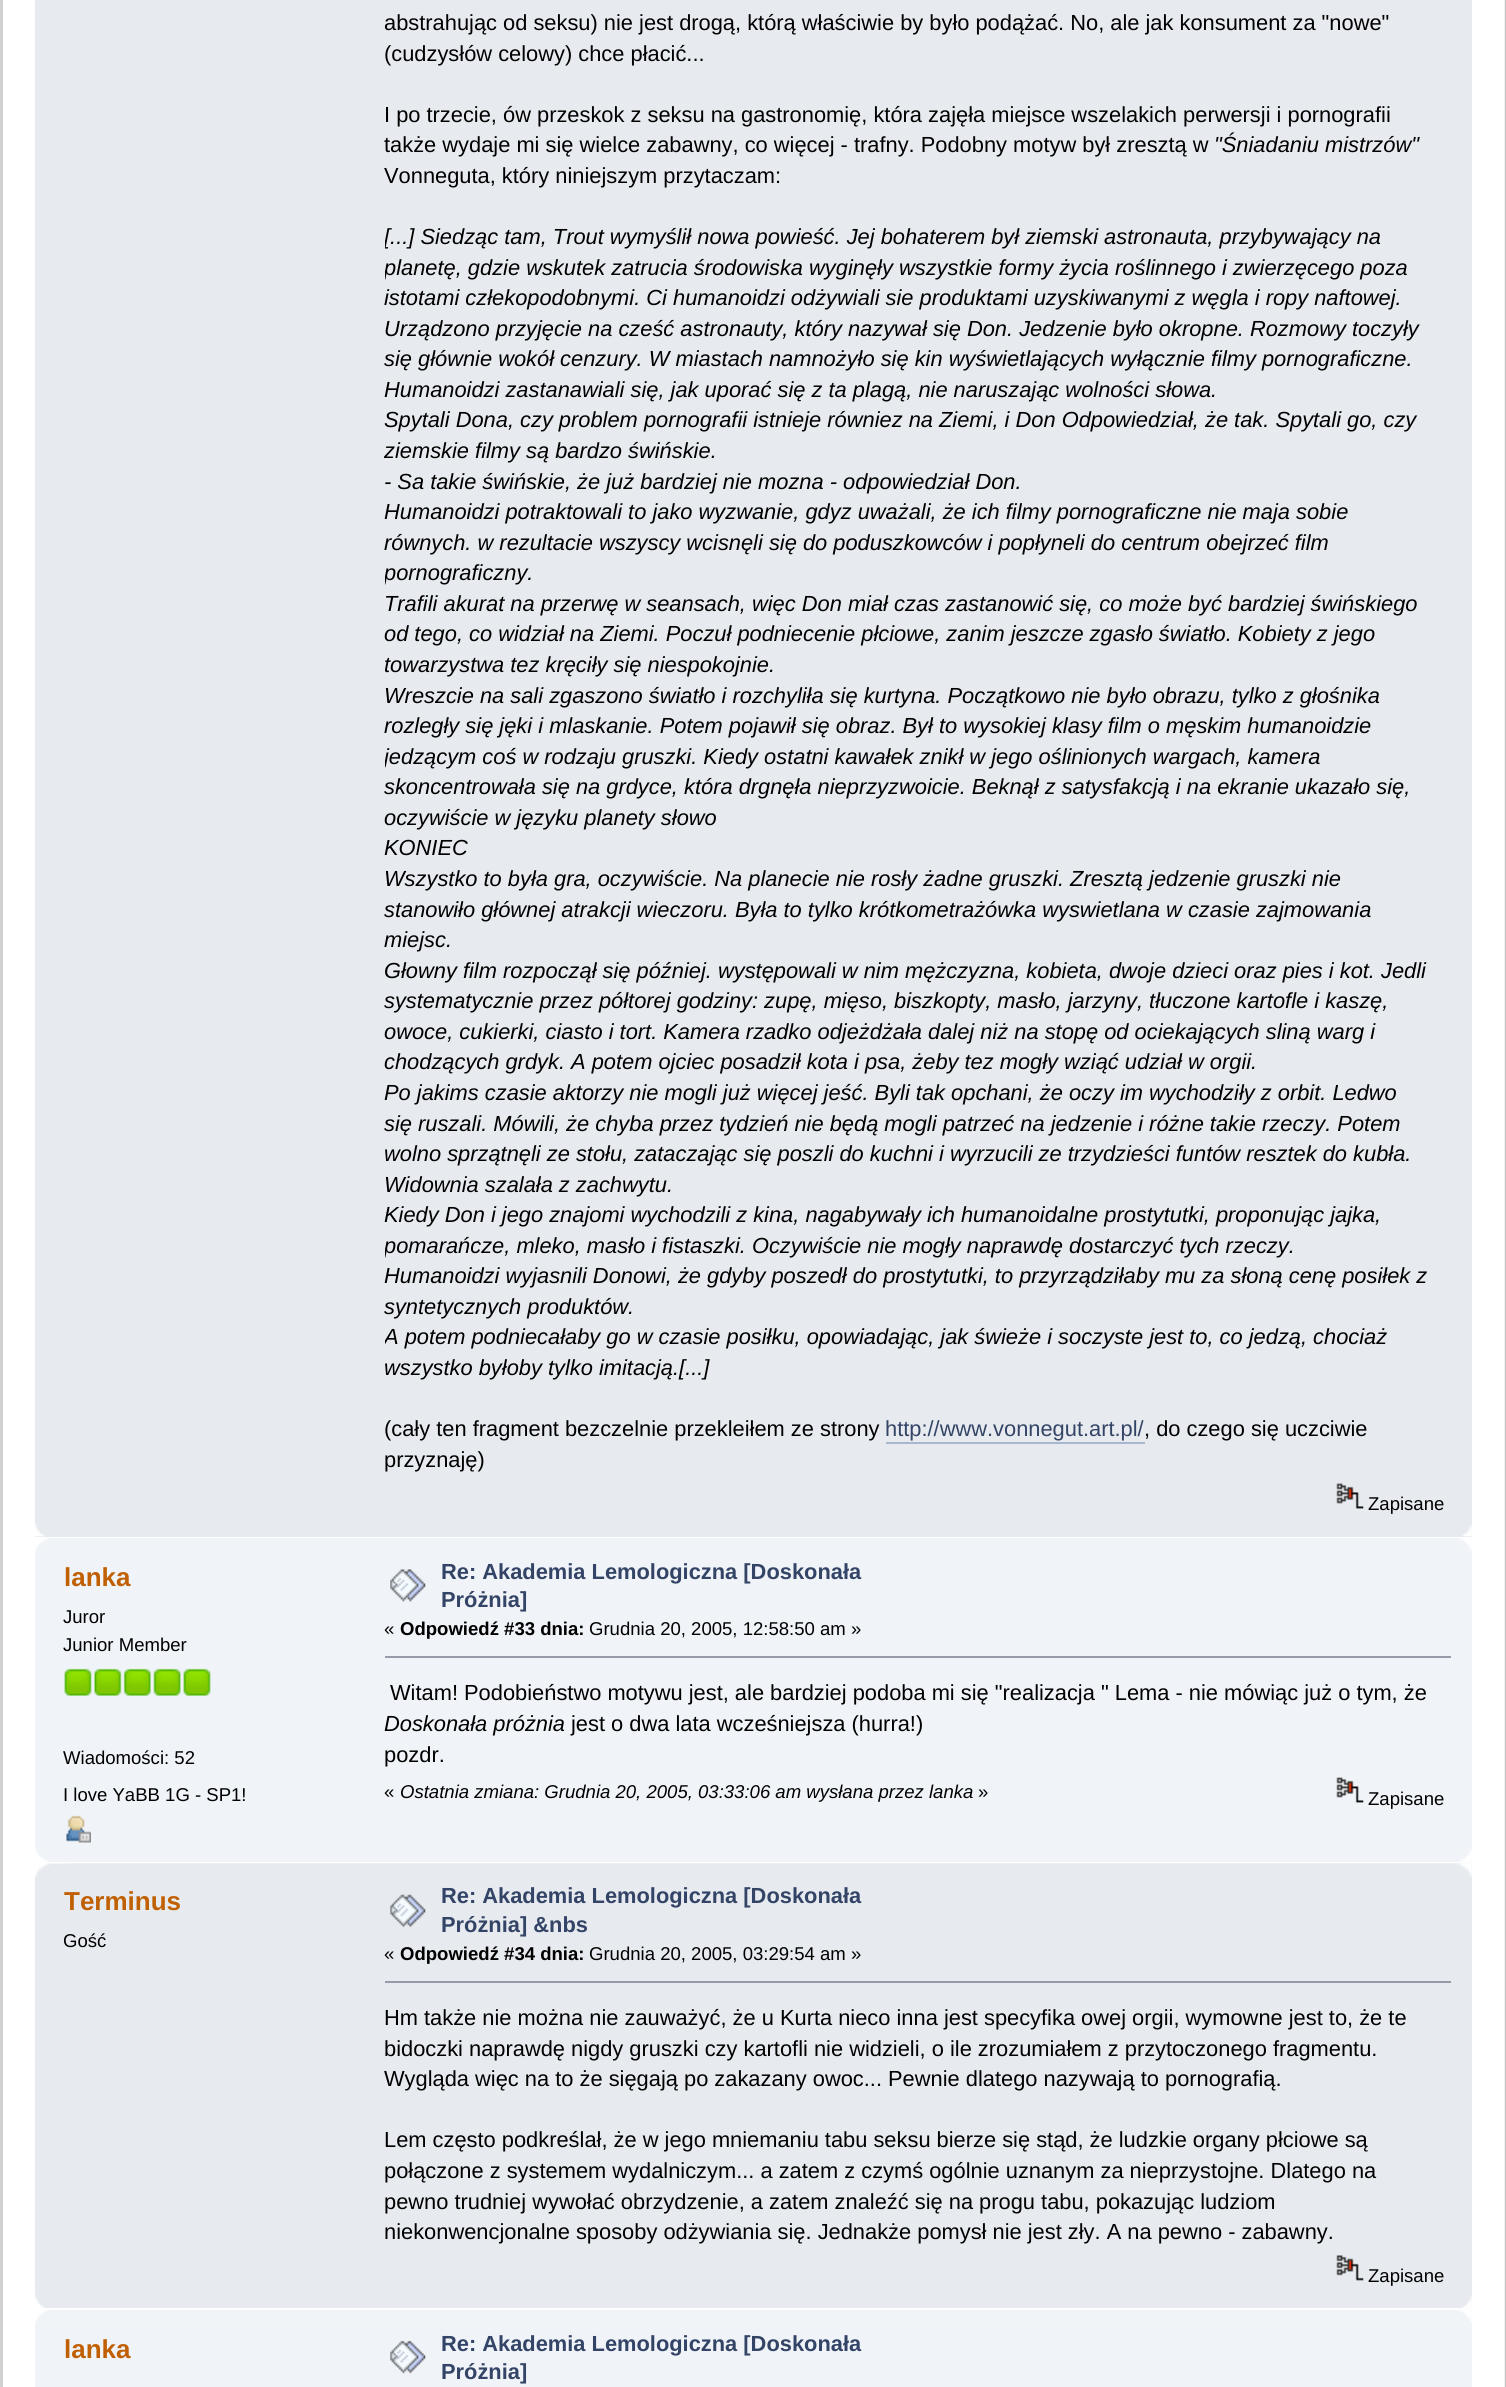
import math
import cairo


def paste(ctx, path, x, y, w, h):
	ctx.save()
	ctx.set_source_surface(cairo.ImageSurface.create_from_png(path), x, y)
	ctx.rectangle(x, y, w, h)
	ctx.fill()
	ctx.restore()

def draw(ctx):
	ctx.set_source_rgb(1, 1, 1)
	ctx.paint()
	ctx.set_source_rgb(0.82, 0.82, 0.82)
	ctx.rectangle(0, 0, 3, 2387)
	ctx.fill()
	paste(ctx, 'media/1.png', 1504, 0, 2, 2387)
	ctx.set_source_rgb(0.906, 0.918, 0.937)
	ctx.rectangle(35, 0, 1437, 1537)
	ctx.fill()
	ctx.select_font_face('Liberation Sans')
	ctx.set_font_size(21.85)
	ctx.set_source_rgb(0, 0, 0)
	for x, y, s in [
		(384, 30, 'abstrahując od seksu) nie jest drogą, którą właściwie by było podążać. No, ale jak konsument za "nowe"'),
		(384, 61, '(cudzysłów celowy) chce płacić...'),
		(384, 122, 'I po trzecie, ów przeskok z seksu na gastronomię, która zajęła miejsce wszelakich perwersji i pornografii'),
		(384, 152, 'także wydaje mi się wielce zabawny, co więcej - trafny. Podobny motyw był zresztą w'),
	]:
		ctx.move_to(x, y)
		ctx.show_text(s)
	ctx.select_font_face('Liberation Sans', cairo.FONT_SLANT_ITALIC)
	ctx.move_to(1214, 152)
	ctx.show_text('"Śniadaniu mistrzów"')
	ctx.select_font_face('Liberation Sans')
	ctx.move_to(384, 183)
	ctx.show_text('Vonneguta, który niniejszym przytaczam:')
	ctx.save()
	ctx.rectangle(385, 0, 1087, 1482)
	ctx.clip()
	ctx.select_font_face('Liberation Sans', cairo.FONT_SLANT_ITALIC)
	ctx.move_to(384, 244)
	ctx.show_text('[...] Siedząc tam, Trout wymyślił nowa powieść. Jej bohaterem był ziemski astronauta, przybywający na')
	ctx.move_to(384, 275)
	ctx.show_text('planetę, gdzie wskutek zatrucia środowiska wyginęły wszystkie formy życia roślinnego i zwierzęcego poza')
	ctx.restore()
	ctx.select_font_face('Liberation Sans', cairo.FONT_SLANT_ITALIC)
	for x, y, s in [
		(384, 305, 'istotami człekopodobnymi. Ci humanoidzi odżywiali sie produktami uzyskiwanymi z węgla i ropy naftowej.'),
		(384, 336, 'Urządzono przyjęcie na cześć astronauty, który nazywał się Don. Jedzenie było okropne. Rozmowy toczyły'),
		(384, 366, 'się głównie wokół cenzury. W miastach namnożyło się kin wyświetlających wyłącznie filmy pornograficzne.'),
		(384, 397, 'Humanoidzi zastanawiali się, jak uporać się z ta plagą, nie naruszając wolności słowa.'),
		(384, 427, 'Spytali Dona, czy problem pornografii istnieje równiez na Ziemi, i Don Odpowiedział, że tak. Spytali go, czy'),
		(384, 458, 'ziemskie filmy są bardzo świńskie.'),
		(384, 489, '- Sa takie świńskie, że już bardziej nie mozna - odpowiedział Don.'),
		(384, 519, 'Humanoidzi potraktowali to jako wyzwanie, gdyz uważali, że ich filmy pornograficzne nie maja sobie'),
		(384, 550, 'równych. w rezultacie wszyscy wcisnęli się do poduszkowców i popłyneli do centrum obejrzeć film'),
	]:
		ctx.move_to(x, y)
		ctx.show_text(s)
	ctx.save()
	ctx.rectangle(385, 0, 1087, 1482)
	ctx.clip()
	ctx.move_to(384, 580)
	ctx.show_text('pornograficzny.')
	ctx.restore()
	for x, y, s in [
		(384, 611, 'Trafili akurat na przerwę w seansach, więc Don miał czas zastanowić się, co może być bardziej świńskiego'),
		(384, 641, 'od tego, co widział na Ziemi. Poczuł podniecenie płciowe, zanim jeszcze zgasło światło. Kobiety z jego'),
		(384, 672, 'towarzystwa tez kręciły się niespokojnie.'),
		(384, 703, 'Wreszcie na sali zgaszono światło i rozchyliła się kurtyna. Początkowo nie było obrazu, tylko z głośnika'),
		(384, 733, 'rozległy się jęki i mlaskanie. Potem pojawił się obraz. Był to wysokiej klasy film o męskim humanoidzie'),
	]:
		ctx.move_to(x, y)
		ctx.show_text(s)
	ctx.save()
	ctx.rectangle(385, 0, 1087, 1482)
	ctx.clip()
	ctx.move_to(384, 764)
	ctx.show_text('jedzącym coś w rodzaju gruszki. Kiedy ostatni kawałek znikł w jego oślinionych wargach, kamera')
	ctx.restore()
	for x, y, s in [
		(384, 794, 'skoncentrowała się na grdyce, która drgnęła nieprzyzwoicie. Beknął z satysfakcją i na ekranie ukazało się,'),
		(384, 825, 'oczywiście w języku planety słowo'),
		(384, 855, 'KONIEC'),
		(384, 886, 'Wszystko to była gra, oczywiście. Na planecie nie rosły żadne gruszki. Zresztą jedzenie gruszki nie'),
		(384, 917, 'stanowiło głównej atrakcji wieczoru. Była to tylko krótkometrażówka wyswietlana w czasie zajmowania'),
		(384, 947, 'miejsc.'),
		(384, 978, 'Głowny film rozpoczął się później. występowali w nim mężczyzna, kobieta, dwoje dzieci oraz pies i kot. Jedli'),
		(384, 1008, 'systematycznie przez półtorej godziny: zupę, mięso, biszkopty, masło, jarzyny, tłuczone kartofle i kaszę,'),
		(384, 1039, 'owoce, cukierki, ciasto i tort. Kamera rzadko odjeżdżała dalej niż na stopę od ociekających sliną warg i'),
		(384, 1069, 'chodzących grdyk. A potem ojciec posadził kota i psa, żeby tez mogły wziąć udział w orgii.'),
		(384, 1100, 'Po jakims czasie aktorzy nie mogli już więcej jeść. Byli tak opchani, że oczy im wychodziły z orbit. Ledwo'),
		(384, 1131, 'się ruszali. Mówili, że chyba przez tydzień nie będą mogli patrzeć na jedzenie i różne takie rzeczy. Potem'),
		(384, 1161, 'wolno sprzątnęli ze stołu, zataczając się poszli do kuchni i wyrzucili ze trzydzieści funtów resztek do kubła.'),
		(384, 1192, 'Widownia szalała z zachwytu.'),
		(384, 1222, 'Kiedy Don i jego znajomi wychodzili z kina, nagabywały ich humanoidalne prostytutki, proponując jajka,'),
	]:
		ctx.move_to(x, y)
		ctx.show_text(s)
	ctx.save()
	ctx.rectangle(385, 0, 1087, 1482)
	ctx.clip()
	ctx.move_to(384, 1253)
	ctx.show_text('pomarańcze, mleko, masło i fistaszki. Oczywiście nie mogły naprawdę dostarczyć tych rzeczy.')
	ctx.restore()
	ctx.move_to(384, 1283)
	ctx.show_text('Humanoidzi wyjasnili Donowi, że gdyby poszedł do prostytutki, to przyrządziłaby mu za słoną cenę posiłek z')
	ctx.move_to(384, 1314)
	ctx.show_text('syntetycznych produktów.')
	ctx.save()
	ctx.rectangle(385, 0, 1087, 1482)
	ctx.clip()
	ctx.move_to(384, 1344)
	ctx.show_text('A potem podniecałaby go w czasie posiłku, opowiadając, jak świeże i soczyste jest to, co jedzą, chociaż')
	ctx.restore()
	ctx.move_to(384, 1375)
	ctx.show_text('wszystko byłoby tylko imitacją.[...]')
	ctx.select_font_face('Liberation Sans')
	ctx.move_to(384, 1436)
	ctx.show_text('(cały ten fragment bezczelnie przekleiłem ze strony')
	ctx.set_source_rgb(0.2, 0.267, 0.4)
	ctx.move_to(885, 1436)
	ctx.show_text('http://www.vonnegut.art.pl/')
	ctx.set_source_rgb(0.659, 0.714, 0.812)
	ctx.rectangle(886, 1442, 259, 2)
	ctx.fill()
	ctx.set_source_rgb(0, 0, 0)
	ctx.move_to(1144, 1436)
	ctx.show_text(', do czego się uczciwie')
	ctx.move_to(384, 1467)
	ctx.show_text('przyznaję)')
	paste(ctx, 'media/2.png', 1336, 1483, 28, 26)
	ctx.set_font_size(18.55)
	ctx.move_to(1368, 1510)
	ctx.show_text('Zapisane')
	paste(ctx, 'media/3.png', 35, 1523, 10, 14)
	paste(ctx, 'media/4.png', 1462, 1524, 10, 13)
	ctx.set_source_rgb(0.941, 0.957, 0.969)
	ctx.rectangle(35, 1538, 1437, 324)
	ctx.fill()
	paste(ctx, 'media/5.png', 35, 1538, 14, 14)
	paste(ctx, 'media/6.png', 1458, 1538, 14, 13)
	ctx.select_font_face('Liberation Sans', cairo.FONT_SLANT_NORMAL, cairo.FONT_WEIGHT_BOLD)
	ctx.set_font_size(26)
	ctx.set_source_rgb(0.753, 0.376, 0.008)
	ctx.move_to(64, 1586)
	ctx.show_text('lanka')
	ctx.select_font_face('Liberation Sans')
	ctx.set_font_size(18.55)
	ctx.set_source_rgb(0, 0, 0)
	ctx.move_to(63, 1623)
	ctx.show_text('Juror')
	ctx.move_to(63, 1651)
	ctx.show_text('Junior Member')
	paste(ctx, 'media/7.png', 64, 1668, 28, 28)
	paste(ctx, 'media/8.png', 94, 1668, 28, 28)
	paste(ctx, 'media/9.png', 123, 1668, 28, 28)
	paste(ctx, 'media/10.png', 153, 1668, 28, 28)
	paste(ctx, 'media/11.png', 183, 1668, 28, 28)
	ctx.move_to(63, 1764)
	ctx.show_text('Wiadomości: 52')
	ctx.move_to(63, 1801)
	ctx.show_text('I love YaBB 1G - SP1!')
	paste(ctx, 'media/12.png', 66, 1815, 25, 28)
	paste(ctx, 'media/13.png', 390, 1569, 36, 33)
	ctx.select_font_face('Liberation Sans', cairo.FONT_SLANT_NORMAL, cairo.FONT_WEIGHT_BOLD)
	ctx.set_font_size(21.85)
	ctx.set_source_rgb(0.2, 0.267, 0.4)
	ctx.move_to(441, 1579)
	ctx.show_text('Re: Akademia Lemologiczna [Doskonała')
	ctx.move_to(441, 1607)
	ctx.show_text('Próżnia]')
	ctx.select_font_face('Liberation Sans')
	ctx.set_font_size(18.55)
	ctx.set_source_rgb(0, 0, 0)
	ctx.move_to(384, 1635)
	ctx.show_text('«')
	ctx.select_font_face('Liberation Sans', cairo.FONT_SLANT_NORMAL, cairo.FONT_WEIGHT_BOLD)
	ctx.move_to(400, 1635)
	ctx.show_text('Odpowiedź #33 dnia:')
	ctx.select_font_face('Liberation Sans')
	ctx.move_to(589, 1635)
	ctx.show_text('Grudnia 20, 2005, 12:58:50 am »')
	ctx.set_source_rgb(0.6, 0.6, 0.667)
	ctx.rectangle(385, 1656, 1066, 2)
	ctx.fill()
	ctx.set_font_size(21.85)
	ctx.set_source_rgb(0, 0, 0)
	ctx.move_to(390, 1700)
	ctx.show_text('Witam! Podobieństwo motywu jest, ale bardziej podoba mi się "realizacja " Lema - nie mówiąc już o tym, że')
	ctx.select_font_face('Liberation Sans', cairo.FONT_SLANT_ITALIC)
	ctx.move_to(384, 1731)
	ctx.show_text('Doskonała próżnia')
	ctx.select_font_face('Liberation Sans')
	ctx.move_to(571, 1731)
	ctx.show_text('jest o dwa lata wcześniejsza (hurra!)')
	ctx.move_to(384, 1762)
	ctx.show_text('pozdr.')
	ctx.set_font_size(18.55)
	ctx.move_to(384, 1798)
	ctx.show_text('«')
	ctx.select_font_face('Liberation Sans', cairo.FONT_SLANT_ITALIC)
	ctx.move_to(400, 1798)
	ctx.show_text('Ostatnia zmiana: Grudnia 20, 2005, 03:33:06 am wysłana przez lanka')
	ctx.select_font_face('Liberation Sans')
	ctx.move_to(978, 1798)
	ctx.show_text('»')
	paste(ctx, 'media/14.png', 1336, 1777, 28, 26)
	ctx.move_to(1368, 1805)
	ctx.show_text('Zapisane')
	paste(ctx, 'media/15.png', 35, 1848, 13, 14)
	paste(ctx, 'media/16.png', 1459, 1849, 13, 13)
	ctx.set_source_rgb(0.906, 0.918, 0.937)
	ctx.rectangle(35, 1864, 1437, 444)
	ctx.fill()
	paste(ctx, 'media/17.png', 35, 1863, 1437, 15)
	paste(ctx, 'media/18.png', 70, 1863, 1402, 14)
	ctx.select_font_face('Liberation Sans', cairo.FONT_SLANT_NORMAL, cairo.FONT_WEIGHT_BOLD)
	ctx.set_font_size(26)
	ctx.set_source_rgb(0.753, 0.376, 0.008)
	ctx.move_to(64, 1910)
	ctx.show_text('Terminus')
	ctx.select_font_face('Liberation Sans')
	ctx.set_font_size(18.55)
	ctx.set_source_rgb(0, 0, 0)
	ctx.move_to(63, 1947)
	ctx.show_text('Gość')
	paste(ctx, 'media/19.png', 390, 1894, 36, 33)
	ctx.select_font_face('Liberation Sans', cairo.FONT_SLANT_NORMAL, cairo.FONT_WEIGHT_BOLD)
	ctx.set_font_size(21.85)
	ctx.set_source_rgb(0.2, 0.267, 0.4)
	ctx.move_to(441, 1903)
	ctx.show_text('Re: Akademia Lemologiczna [Doskonała')
	ctx.move_to(441, 1932)
	ctx.show_text('Próżnia] &nbs')
	ctx.select_font_face('Liberation Sans')
	ctx.set_font_size(18.55)
	ctx.set_source_rgb(0, 0, 0)
	ctx.move_to(384, 1960)
	ctx.show_text('«')
	ctx.select_font_face('Liberation Sans', cairo.FONT_SLANT_NORMAL, cairo.FONT_WEIGHT_BOLD)
	ctx.move_to(400, 1960)
	ctx.show_text('Odpowiedź #34 dnia:')
	ctx.select_font_face('Liberation Sans')
	ctx.move_to(589, 1960)
	ctx.show_text('Grudnia 20, 2005, 03:29:54 am »')
	ctx.set_source_rgb(0.6, 0.6, 0.667)
	ctx.rectangle(385, 1981, 1066, 2)
	ctx.fill()
	ctx.set_font_size(21.85)
	ctx.set_source_rgb(0, 0, 0)
	for x, y, s in [
		(384, 2025, 'Hm także nie można nie zauważyć, że u Kurta nieco inna jest specyfika owej orgii, wymowne jest to, że te'),
		(384, 2056, 'bidoczki naprawdę nigdy gruszki czy kartofli nie widzieli, o ile zrozumiałem z przytoczonego fragmentu.'),
		(384, 2086, 'Wygląda więc na to że sięgają po zakazany owoc... Pewnie dlatego nazywają to pornografią.'),
		(384, 2147, 'Lem często podkreślał, że w jego mniemaniu tabu seksu bierze się stąd, że ludzkie organy płciowe są'),
		(384, 2178, 'połączone z systemem wydalniczym... a zatem z czymś ogólnie uznanym za nieprzystojne. Dlatego na'),
		(384, 2209, 'pewno trudniej wywołać obrzydzenie, a zatem znaleźć się na progu tabu, pokazując ludziom'),
		(384, 2239, 'niekonwencjonalne sposoby odżywiania się. Jednakże pomysł nie jest zły. A na pewno - zabawny.'),
	]:
		ctx.move_to(x, y)
		ctx.show_text(s)
	paste(ctx, 'media/20.png', 1336, 2255, 28, 26)
	ctx.set_font_size(18.55)
	ctx.move_to(1368, 2282)
	ctx.show_text('Zapisane')
	paste(ctx, 'media/21.png', 35, 2295, 10, 13)
	paste(ctx, 'media/22.png', 1462, 2296, 10, 12)
	ctx.set_source_rgb(0.941, 0.957, 0.969)
	ctx.rectangle(35, 2310, 1437, 77)
	ctx.fill()
	paste(ctx, 'media/23.png', 35, 2309, 1436, 15)
	paste(ctx, 'media/24.png', 1458, 2310, 14, 13)
	ctx.select_font_face('Liberation Sans', cairo.FONT_SLANT_NORMAL, cairo.FONT_WEIGHT_BOLD)
	ctx.set_font_size(26)
	ctx.set_source_rgb(0.753, 0.376, 0.008)
	ctx.move_to(64, 2358)
	ctx.show_text('lanka')
	paste(ctx, 'media/25.png', 390, 2340, 36, 34)
	ctx.set_font_size(21.85)
	ctx.set_source_rgb(0.2, 0.267, 0.4)
	ctx.move_to(441, 2351)
	ctx.show_text('Re: Akademia Lemologiczna [Doskonała')
	ctx.move_to(441, 2379)
	ctx.show_text('Próżnia]')


surface = cairo.ImageSurface(cairo.FORMAT_RGB24, 1506, 2387)
ctx = cairo.Context(surface)
options = cairo.FontOptions()
options.set_hint_metrics(cairo.HINT_METRICS_OFF)
options.set_hint_style(cairo.HINT_STYLE_NONE)
ctx.set_font_options(options)
ctx.set_miter_limit(4)
draw(ctx)
surface.write_to_png('image.png')
